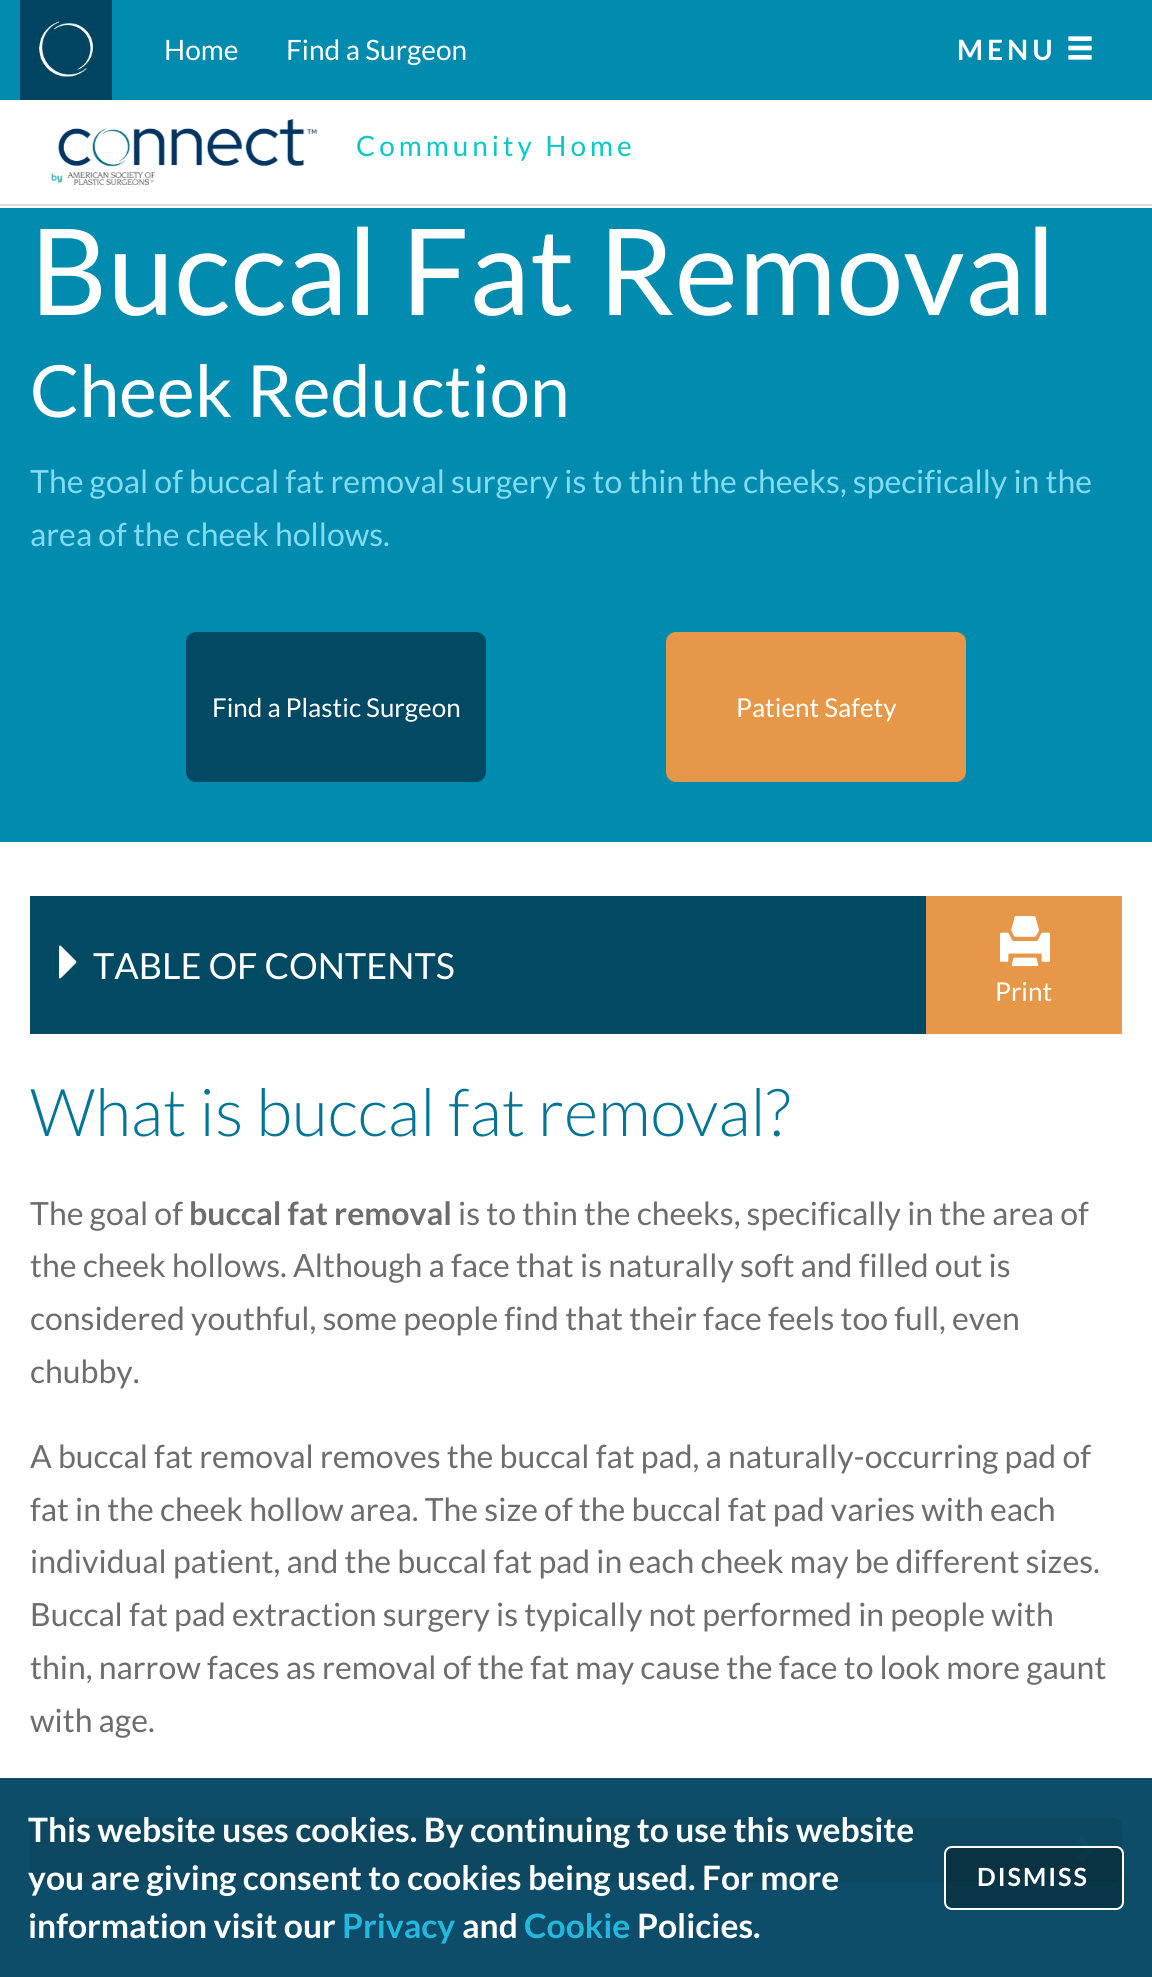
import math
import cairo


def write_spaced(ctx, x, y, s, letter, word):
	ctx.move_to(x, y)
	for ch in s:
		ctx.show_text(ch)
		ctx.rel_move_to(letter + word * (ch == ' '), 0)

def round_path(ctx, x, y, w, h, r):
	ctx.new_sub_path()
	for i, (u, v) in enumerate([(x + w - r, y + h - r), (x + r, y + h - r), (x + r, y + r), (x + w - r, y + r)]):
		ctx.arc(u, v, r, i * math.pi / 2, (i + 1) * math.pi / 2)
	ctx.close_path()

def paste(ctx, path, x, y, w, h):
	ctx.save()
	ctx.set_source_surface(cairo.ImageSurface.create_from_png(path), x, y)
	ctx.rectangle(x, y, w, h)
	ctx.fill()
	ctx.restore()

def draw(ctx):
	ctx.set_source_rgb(1, 1, 1)
	ctx.paint()
	ctx.set_source_rgb(0.055, 0.302, 0.412)
	ctx.rectangle(0, 1778, 1152, 199)
	ctx.fill()
	ctx.set_source_rgb(0.004, 0.545, 0.686)
	ctx.rectangle(0, 0, 1152, 100)
	ctx.fill()
	paste(ctx, 'media/1.png', 20, 0, 92, 100)
	ctx.select_font_face('Lato')
	ctx.set_font_size(28)
	ctx.set_source_rgb(1, 1, 1)
	ctx.move_to(164, 60)
	ctx.show_text('Home')
	ctx.move_to(286, 60)
	ctx.show_text('Find a Surgeon')
	ctx.select_font_face('Lato', cairo.FONT_SLANT_NORMAL, cairo.FONT_WEIGHT_BOLD)
	write_spaced(ctx, 957, 60, 'MENU', 4, 0)
	paste(ctx, 'media/2.png', 1068, 36, 24, 24)
	ctx.set_source_rgb(0.839, 0.871, 0.878)
	ctx.rectangle(0, 204, 1152, 2)
	ctx.fill()
	paste(ctx, 'media/3.png', 51, 119, 266, 67)
	ctx.select_font_face('Lato')
	ctx.set_source_rgb(0.035, 0.784, 0.773)
	write_spaced(ctx, 356, 156, 'Community Home', 4, 0)
	ctx.set_source_rgb(0.004, 0.545, 0.686)
	ctx.rectangle(0, 208, 1152, 634)
	ctx.fill()
	ctx.set_font_size(120)
	ctx.set_source_rgb(1, 1, 1)
	ctx.move_to(30, 315)
	ctx.show_text('Buccal Fat Removal')
	ctx.set_font_size(72)
	ctx.move_to(30, 417)
	ctx.show_text('Cheek Reduction')
	ctx.set_font_size(32)
	ctx.set_source_rgb(0.514, 0.859, 0.945)
	ctx.move_to(30, 493)
	ctx.show_text('The goal of buccal fat removal surgery is to thin the cheeks, specifically in the')
	ctx.move_to(30, 546)
	ctx.show_text('area of the cheek hollows.')
	ctx.set_source_rgb(0.008, 0.29, 0.388)
	round_path(ctx, 186, 632, 300, 150, 10)
	ctx.fill()
	ctx.set_font_size(26)
	ctx.set_source_rgb(1, 1, 1)
	ctx.move_to(212, 717)
	ctx.show_text('Find a Plastic Surgeon')
	ctx.set_source_rgb(0.906, 0.592, 0.282)
	round_path(ctx, 666, 632, 300, 150, 10)
	ctx.fill()
	ctx.set_source_rgb(1, 1, 1)
	ctx.move_to(736, 717)
	ctx.show_text('Patient Safety')
	ctx.set_source_rgb(0.008, 0.29, 0.388)
	ctx.rectangle(30, 896, 896, 138)
	ctx.fill()
	paste(ctx, 'media/4.png', 59, 945, 18, 34)
	ctx.set_font_size(36)
	ctx.set_source_rgb(1, 1, 1)
	ctx.move_to(93, 979)
	ctx.show_text('TABLE OF CONTENTS')
	ctx.set_source_rgb(0.906, 0.592, 0.282)
	ctx.rectangle(926, 896, 196, 138)
	ctx.fill()
	paste(ctx, 'media/5.png', 1000, 916, 50, 50)
	ctx.set_font_size(26)
	ctx.set_source_rgb(1, 1, 1)
	ctx.move_to(995, 1001)
	ctx.show_text('Print')
	ctx.select_font_face('Lato Light')
	ctx.set_font_size(66)
	ctx.set_source_rgb(0, 0.459, 0.588)
	ctx.move_to(30, 1136)
	ctx.show_text('What is buccal fat removal?')
	ctx.select_font_face('Lato')
	ctx.set_font_size(32)
	ctx.set_source_rgb(0.427, 0.427, 0.427)
	ctx.move_to(30, 1225)
	ctx.show_text('The goal of')
	ctx.select_font_face('Lato', cairo.FONT_SLANT_NORMAL, cairo.FONT_WEIGHT_BOLD)
	ctx.move_to(189, 1225)
	ctx.show_text('buccal fat removal')
	ctx.select_font_face('Lato')
	for x, y, s in [
		(458, 1225, 'is to thin the cheeks, specifically in the area of'),
		(30, 1277, 'the cheek hollows. Although a face that is naturally soft and filled out is'),
		(30, 1330, 'considered youthful, some people find that their face feels too full, even'),
		(30, 1383, 'chubby.'),
		(30, 1468, 'A buccal fat removal removes the buccal fat pad, a naturally-occurring pad of'),
		(30, 1521, 'fat in the cheek hollow area. The size of the buccal fat pad varies with each'),
		(30, 1573, 'individual patient, and the buccal fat pad in each cheek may be different sizes.'),
		(30, 1626, 'Buccal fat pad extraction surgery is typically not performed in people with'),
		(30, 1679, 'thin, narrow faces as removal of the fat may cause the face to look more gaunt'),
		(30, 1732, 'with age.'),
	]:
		ctx.move_to(x, y)
		ctx.show_text(s)
	ctx.set_source_rgb(0.051, 0.282, 0.376)
	round_path(ctx, 30, 1818, 1092, 64, 8)
	ctx.fill()
	ctx.set_source_rgb(0.055, 0.302, 0.412)
	ctx.new_path()
	ctx.move_to(1095, 1849)
	ctx.line_to(1082, 1862)
	ctx.line_to(1077.5, 1857.5)
	ctx.line_to(1085.5, 1849)
	ctx.line_to(1077.5, 1841)
	ctx.line_to(1082, 1836.5)
	ctx.close_path()
	ctx.fill()
	ctx.select_font_face('Lato', cairo.FONT_SLANT_NORMAL, cairo.FONT_WEIGHT_BOLD)
	ctx.set_font_size(33.6)
	ctx.set_source_rgb(1, 1, 1)
	for x, y, s in [
		(28, 1842, 'This website uses cookies. By continuing to use this website'),
		(28, 1890, 'you are giving consent to cookies being used. For more'),
		(28, 1938, 'information visit our'),
	]:
		ctx.move_to(x, y)
		ctx.show_text(s)
	ctx.set_source_rgb(0.141, 0.722, 0.871)
	ctx.move_to(342, 1938)
	ctx.show_text('Privacy')
	ctx.set_source_rgb(1, 1, 1)
	ctx.move_to(462, 1938)
	ctx.show_text('and')
	ctx.set_source_rgb(0.141, 0.722, 0.871)
	ctx.move_to(524, 1938)
	ctx.show_text('Cookie')
	ctx.set_source_rgb(1, 1, 1)
	ctx.move_to(637, 1938)
	ctx.show_text('Policies.')
	ctx.set_source_rgba(0, 0, 0, 0.3)
	round_path(ctx, 945, 1847, 178, 62, 7)
	ctx.fill_preserve()
	ctx.set_source_rgb(1, 1, 1)
	ctx.stroke()
	ctx.set_font_size(25)
	write_spaced(ctx, 977, 1886, 'DISMISS', 2, 0)


surface = cairo.ImageSurface(cairo.FORMAT_RGB24, 1152, 1977)
ctx = cairo.Context(surface)
options = cairo.FontOptions()
options.set_hint_metrics(cairo.HINT_METRICS_OFF)
options.set_hint_style(cairo.HINT_STYLE_NONE)
ctx.set_font_options(options)
ctx.set_miter_limit(4)
draw(ctx)
surface.write_to_png('image.png')
